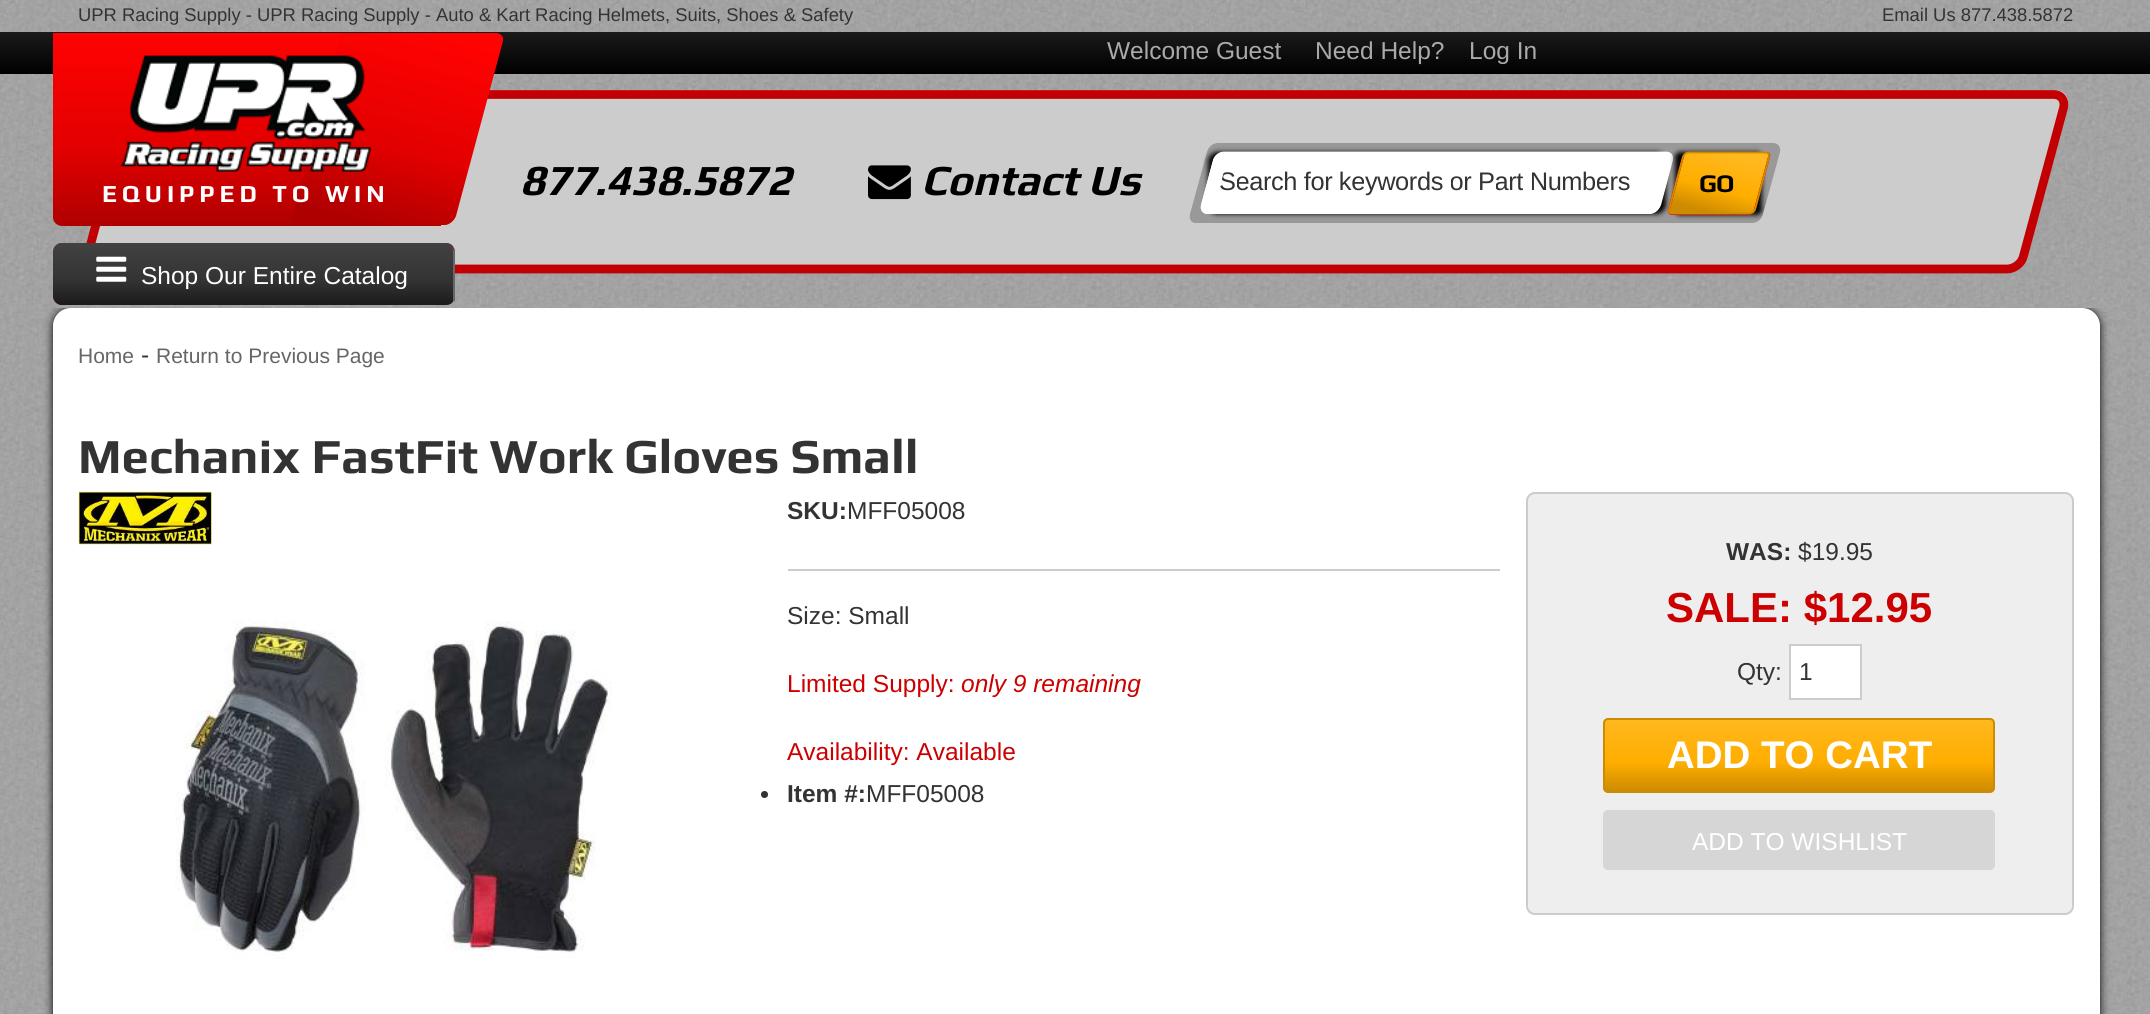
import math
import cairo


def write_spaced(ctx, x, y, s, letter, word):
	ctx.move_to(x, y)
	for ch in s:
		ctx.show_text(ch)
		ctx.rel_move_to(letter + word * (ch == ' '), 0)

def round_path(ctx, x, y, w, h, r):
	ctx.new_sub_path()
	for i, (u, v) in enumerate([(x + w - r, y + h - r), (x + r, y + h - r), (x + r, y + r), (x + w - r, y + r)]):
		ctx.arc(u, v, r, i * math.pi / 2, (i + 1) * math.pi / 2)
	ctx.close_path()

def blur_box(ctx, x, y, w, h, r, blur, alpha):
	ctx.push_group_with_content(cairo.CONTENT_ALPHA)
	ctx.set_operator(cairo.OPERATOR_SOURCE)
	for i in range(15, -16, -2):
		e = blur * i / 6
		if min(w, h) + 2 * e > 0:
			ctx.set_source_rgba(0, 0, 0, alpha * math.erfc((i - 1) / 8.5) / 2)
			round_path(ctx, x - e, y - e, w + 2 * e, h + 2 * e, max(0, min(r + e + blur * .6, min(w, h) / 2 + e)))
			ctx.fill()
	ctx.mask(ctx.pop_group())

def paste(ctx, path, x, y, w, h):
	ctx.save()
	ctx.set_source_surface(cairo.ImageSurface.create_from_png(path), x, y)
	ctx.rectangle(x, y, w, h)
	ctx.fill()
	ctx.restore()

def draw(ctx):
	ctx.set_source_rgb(1, 1, 1)
	ctx.paint()
	paste(ctx, 'media/1.png', 0, 0, 2150, 1014)
	ctx.select_font_face('Liberation Sans')
	ctx.set_font_size(18.4)
	ctx.set_source_rgb(0.2, 0.2, 0.2)
	ctx.move_to(78, 21)
	ctx.show_text('UPR Racing Supply - UPR Racing Supply - Auto & Kart Racing Helmets, Suits, Shoes & Safety')
	ctx.move_to(1882, 21)
	ctx.show_text('Email Us 877.438.5872')
	gradient = cairo.LinearGradient(1075, 31, 1075, 74)
	gradient.add_color_stop_rgba(0, 0.106, 0.106, 0.106, 1)
	gradient.add_color_stop_rgba(1, 0, 0, 0, 1)
	ctx.set_source(gradient)
	ctx.rectangle(0, 32, 2150, 42)
	ctx.fill()
	ctx.set_font_size(24.5)
	ctx.set_source_rgb(0.667, 0.667, 0.667)
	for x, y, s in [
		(1107, 59, 'Welcome Guest'),
		(1315, 59, 'Need Help?'),
		(1469, 59, 'Log In'),
	]:
		ctx.move_to(x, y)
		ctx.show_text(s)
	ctx.set_source_rgb(0.8, 0.8, 0.8)
	ctx.new_path()
	ctx.move_to(145, 90)
	ctx.line_to(2055, 90)
	ctx.curve_to(2065, 90, 2070, 98, 2068, 108)
	ctx.line_to(2028, 256)
	ctx.curve_to(2026, 266, 2016, 273, 2006, 273)
	ctx.line_to(96, 273)
	ctx.curve_to(86, 273, 80, 266, 83, 256)
	ctx.line_to(123, 108)
	ctx.curve_to(125, 98, 135, 90, 145, 90)
	ctx.close_path()
	ctx.fill()
	ctx.new_path()
	ctx.move_to(143.5, 94.5)
	ctx.line_to(2054, 94.5)
	ctx.curve_to(2061, 94.5, 2065.5, 100.5, 2063.5, 108)
	ctx.line_to(2023.5, 256)
	ctx.curve_to(2022, 263, 2014.5, 269, 2007, 269)
	ctx.line_to(97, 269)
	ctx.curve_to(89.5, 269, 85.5, 263, 87.5, 256)
	ctx.line_to(127, 108)
	ctx.curve_to(129, 100.5, 136.5, 94.5, 143.5, 94.5)
	ctx.close_path()
	ctx.set_source_rgb(0.761, 0, 0.012)
	ctx.set_line_width(8.8)
	ctx.stroke()
	gradient = cairo.LinearGradient(247, 33, 247, 226)
	gradient.add_color_stop_rgba(0, 1, 0.008, 0.008, 1)
	gradient.add_color_stop_rgba(0.6, 0.886, 0, 0, 1)
	gradient.add_color_stop_rgba(1, 0.686, 0, 0, 1)
	ctx.set_source(gradient)
	ctx.new_path()
	ctx.move_to(53, 33)
	ctx.line_to(441, 33)
	ctx.line_to(441, 226)
	ctx.line_to(62, 226)
	ctx.curve_to(57, 226, 53, 222, 53, 217)
	ctx.close_path()
	ctx.fill()
	gradient = cairo.LinearGradient(423, 33, 372, 225)
	gradient.add_color_stop_rgba(0, 1, 0.008, 0.008, 1)
	gradient.add_color_stop_rgba(0.6, 0.886, 0, 0, 1)
	gradient.add_color_stop_rgba(1, 0.686, 0, 0, 1)
	ctx.set_source(gradient)
	ctx.new_path()
	ctx.move_to(342, 33)
	ctx.line_to(496, 33)
	ctx.curve_to(501, 33, 504, 37, 503, 41)
	ctx.line_to(456, 216)
	ctx.curve_to(454, 221, 449, 225, 445, 225)
	ctx.line_to(290, 225)
	ctx.close_path()
	ctx.fill()
	paste(ctx, 'media/2.png', 120, 55, 251, 117)
	ctx.select_font_face('Play', cairo.FONT_SLANT_NORMAL, cairo.FONT_WEIGHT_BOLD)
	ctx.set_source_rgb(1, 1, 1)
	write_spaced(ctx, 102, 202, 'EQUIPPED TO WIN', 4.9, 0)
	ctx.select_font_face('Play', cairo.FONT_SLANT_ITALIC, cairo.FONT_WEIGHT_BOLD)
	ctx.set_font_size(43)
	ctx.set_source_rgb(0, 0, 0)
	ctx.move_to(520, 195)
	ctx.show_text('877.438.5872')
	paste(ctx, 'media/3.png', 868, 165, 43, 35)
	ctx.move_to(921, 195)
	ctx.show_text('Contact Us')
	ctx.set_source_rgb(0.6, 0.6, 0.6)
	ctx.new_path()
	ctx.move_to(1218, 143)
	ctx.line_to(1773, 143)
	ctx.curve_to(1778, 143, 1781, 147, 1780, 152)
	ctx.line_to(1763, 214)
	ctx.curve_to(1762, 219, 1757, 223, 1752, 223)
	ctx.line_to(1196, 223)
	ctx.curve_to(1191, 223, 1189, 219, 1190, 214)
	ctx.line_to(1207, 152)
	ctx.curve_to(1208, 147, 1213, 143, 1218, 143)
	ctx.close_path()
	ctx.fill()
	ctx.set_source_rgb(0, 0, 0)
	blur_box(ctx, 1208, 152, 458, 62, 9, 2.5, 1)
	ctx.set_source_rgb(1, 1, 1)
	ctx.new_path()
	ctx.move_to(1224, 152)
	ctx.line_to(1666, 152)
	ctx.curve_to(1671, 152, 1674, 156, 1673, 160)
	ctx.line_to(1661, 205)
	ctx.curve_to(1659, 210, 1654, 214, 1649, 214)
	ctx.line_to(1207, 214)
	ctx.curve_to(1203, 214, 1200, 210, 1201, 205)
	ctx.line_to(1213, 160)
	ctx.curve_to(1214, 156, 1219, 152, 1224, 152)
	ctx.close_path()
	ctx.fill()
	ctx.new_path()
	ctx.move_to(1224, 152.5)
	ctx.line_to(1666, 152.5)
	ctx.curve_to(1670.5, 152.5, 1673, 156, 1671.5, 160.5)
	ctx.line_to(1659.5, 205)
	ctx.curve_to(1658.5, 209.5, 1654, 213, 1649.5, 213)
	ctx.line_to(1207.5, 213)
	ctx.curve_to(1203.5, 213, 1200.5, 209.5, 1202, 205)
	ctx.line_to(1214, 160.5)
	ctx.curve_to(1215, 156, 1219.5, 152.5, 1224, 152.5)
	ctx.close_path()
	ctx.set_line_width(1.8)
	ctx.stroke()
	ctx.save()
	ctx.new_path()
	ctx.move_to(1225.5, 165.5)
	ctx.line_to(1657, 165.5)
	ctx.line_to(1648, 200)
	ctx.line_to(1216.5, 200)
	ctx.close_path()
	ctx.clip()
	ctx.select_font_face('Liberation Sans')
	ctx.set_font_size(25.4)
	ctx.set_source_rgb(0.2, 0.2, 0.2)
	write_spaced(ctx, 1219, 190, 'Search for keywords or Part Numbers', -0.4, 0)
	ctx.restore()
	ctx.save()
	ctx.new_path()
	ctx.move_to(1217.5, 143)
	ctx.line_to(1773.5, 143)
	ctx.curve_to(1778.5, 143, 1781, 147, 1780, 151.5)
	ctx.line_to(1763, 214)
	ctx.curve_to(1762, 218.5, 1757, 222.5, 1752, 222.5)
	ctx.line_to(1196.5, 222.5)
	ctx.curve_to(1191.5, 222.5, 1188.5, 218.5, 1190, 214)
	ctx.line_to(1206.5, 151.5)
	ctx.curve_to(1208, 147, 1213, 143, 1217.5, 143)
	ctx.close_path()
	ctx.clip()
	ctx.set_source_rgb(0, 0, 0)
	blur_box(ctx, 1675, 152, 87, 63, 5, 2.5, 1)
	ctx.restore()
	ctx.set_source_rgb(0.886, 0, 0)
	ctx.new_path()
	ctx.move_to(1689, 152)
	ctx.line_to(1766, 152)
	ctx.curve_to(1769, 152, 1771, 154, 1770, 157)
	ctx.line_to(1756, 209)
	ctx.curve_to(1755, 212, 1752, 215, 1749, 215)
	ctx.line_to(1672, 215)
	ctx.curve_to(1669, 215, 1667, 212, 1668, 209)
	ctx.line_to(1682, 157)
	ctx.curve_to(1683, 154, 1686, 152, 1689, 152)
	ctx.close_path()
	ctx.fill()
	gradient = cairo.LinearGradient(1727, 153, 1711, 213)
	gradient.add_color_stop_rgba(0, 1, 0.722, 0.122, 1)
	gradient.add_color_stop_rgba(0.6, 1, 0.682, 0, 1)
	gradient.add_color_stop_rgba(1, 0.8, 0.545, 0, 1)
	ctx.set_source(gradient)
	ctx.new_path()
	ctx.move_to(1685, 153)
	ctx.line_to(1769, 153)
	ctx.line_to(1753, 213)
	ctx.line_to(1669, 213)
	ctx.close_path()
	ctx.fill()
	ctx.new_path()
	ctx.move_to(1688.5, 152.5)
	ctx.line_to(1765.5, 152.5)
	ctx.curve_to(1768, 152.5, 1769.5, 154.5, 1769, 157)
	ctx.line_to(1755, 209.5)
	ctx.curve_to(1754, 212, 1751.5, 213.5, 1749, 213.5)
	ctx.line_to(1672, 213.5)
	ctx.curve_to(1670, 213.5, 1668.5, 212, 1669, 209.5)
	ctx.line_to(1683, 157)
	ctx.curve_to(1684, 154.5, 1686, 152.5, 1688.5, 152.5)
	ctx.close_path()
	ctx.set_source_rgb(0.8, 0.545, 0)
	ctx.stroke()
	ctx.select_font_face('Play', cairo.FONT_SLANT_NORMAL, cairo.FONT_WEIGHT_BOLD)
	ctx.set_font_size(25.4)
	ctx.set_source_rgb(0, 0, 0)
	write_spaced(ctx, 1699, 192, 'GO', -1, 0)
	ctx.save()
	ctx.rectangle(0, 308, 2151, 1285)
	ctx.clip()
	ctx.set_source_rgb(0, 0, 0)
	blur_box(ctx, 53, 308, 2047, 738, 18, 4.5, 1)
	ctx.restore()
	ctx.set_source_rgb(0.886, 0, 0)
	round_path(ctx, 53, 243, 402, 62, 9)
	ctx.fill()
	ctx.save()
	round_path(ctx, 53, 243, 402, 62, 9)
	ctx.clip()
	gradient = cairo.LinearGradient(253, 243, 253, 305)
	gradient.add_color_stop_rgba(0, 0.259, 0.259, 0.259, 1)
	gradient.add_color_stop_rgba(0.6, 0.2, 0.2, 0.2, 1)
	gradient.add_color_stop_rgba(1, 0.102, 0.102, 0.102, 1)
	ctx.set_source(gradient)
	ctx.new_path()
	ctx.move_to(62, 243)
	ctx.line_to(453, 243)
	ctx.line_to(453, 305)
	ctx.line_to(62, 305)
	ctx.curve_to(57, 305, 53, 301, 53, 296)
	ctx.line_to(53, 252)
	ctx.curve_to(53, 247, 57, 243, 62, 243)
	ctx.close_path()
	ctx.fill()
	ctx.restore()
	ctx.set_source_rgb(0.4, 0.4, 0.4)
	ctx.rectangle(453, 249, 2, 52)
	ctx.fill()
	paste(ctx, 'media/4.png', 96, 256, 31, 26)
	ctx.select_font_face('Liberation Sans')
	ctx.set_font_size(24.5)
	ctx.set_source_rgb(1, 1, 1)
	ctx.move_to(141, 284)
	ctx.show_text('Shop Our Entire Catalog')
	round_path(ctx, 53, 308, 2047, 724, 18)
	ctx.fill()
	ctx.set_font_size(21)
	ctx.set_source_rgb(0.4, 0.4, 0.4)
	ctx.move_to(78, 363)
	ctx.show_text('Home')
	ctx.set_font_size(24.5)
	ctx.set_source_rgb(0.2, 0.2, 0.2)
	ctx.move_to(141, 363)
	ctx.show_text('-')
	ctx.set_font_size(21)
	ctx.set_source_rgb(0.4, 0.4, 0.4)
	ctx.move_to(156, 363)
	ctx.show_text('Return to Previous Page')
	ctx.select_font_face('Play', cairo.FONT_SLANT_NORMAL, cairo.FONT_WEIGHT_BOLD)
	ctx.set_font_size(49)
	ctx.set_source_rgb(0.2, 0.2, 0.2)
	ctx.move_to(78, 473)
	ctx.show_text('Mechanix FastFit Work Gloves Small')
	paste(ctx, 'media/5.png', 78, 491, 134, 54)
	paste(ctx, 'media/6.png', 175, 621, 437, 338)
	ctx.select_font_face('Liberation Sans', cairo.FONT_SLANT_NORMAL, cairo.FONT_WEIGHT_BOLD)
	ctx.set_font_size(24.5)
	ctx.move_to(787, 519)
	ctx.show_text('SKU:')
	ctx.select_font_face('Liberation Sans')
	ctx.move_to(847, 519)
	ctx.show_text('MFF05008')
	ctx.set_source_rgb(0.8, 0.8, 0.8)
	ctx.rectangle(788, 569, 712, 2)
	ctx.fill()
	ctx.set_source_rgb(0.2, 0.2, 0.2)
	ctx.move_to(787, 624)
	ctx.show_text('Size: Small')
	ctx.set_source_rgb(0.8, 0, 0)
	ctx.move_to(787, 692)
	ctx.show_text('Limited Supply:')
	ctx.select_font_face('Liberation Sans', cairo.FONT_SLANT_ITALIC)
	ctx.move_to(961, 692)
	ctx.show_text('only 9 remaining')
	ctx.select_font_face('Liberation Sans')
	ctx.move_to(787, 760)
	ctx.show_text('Availability: Available')
	ctx.set_source_rgb(0.2, 0.2, 0.2)
	ctx.new_path()
	ctx.arc(764.5, 794.5, 3.5, 0, 2 * math.pi)
	ctx.fill()
	ctx.select_font_face('Liberation Sans', cairo.FONT_SLANT_NORMAL, cairo.FONT_WEIGHT_BOLD)
	ctx.move_to(787, 802)
	ctx.show_text('Item #:')
	ctx.select_font_face('Liberation Sans')
	ctx.move_to(866, 802)
	ctx.show_text('MFF05008')
	ctx.set_source_rgb(0.933, 0.933, 0.933)
	round_path(ctx, 1527, 493, 546, 421, 8)
	ctx.fill_preserve()
	ctx.set_source_rgb(0.8, 0.8, 0.8)
	ctx.set_line_width(2)
	ctx.stroke()
	ctx.select_font_face('Liberation Sans', cairo.FONT_SLANT_NORMAL, cairo.FONT_WEIGHT_BOLD)
	ctx.set_source_rgb(0.2, 0.2, 0.2)
	ctx.move_to(1726, 560)
	ctx.show_text('WAS:')
	ctx.select_font_face('Liberation Sans')
	ctx.move_to(1798, 560)
	ctx.show_text('$19.95')
	ctx.select_font_face('Liberation Sans', cairo.FONT_SLANT_NORMAL, cairo.FONT_WEIGHT_BOLD)
	ctx.set_font_size(42)
	ctx.set_source_rgb(0.8, 0, 0)
	ctx.move_to(1666, 622)
	ctx.show_text('SALE: $12.95')
	ctx.select_font_face('Liberation Sans')
	ctx.set_font_size(24.5)
	ctx.set_source_rgb(0.2, 0.2, 0.2)
	ctx.move_to(1737, 680)
	ctx.show_text('Qty:')
	ctx.set_source_rgb(1, 1, 1)
	ctx.rectangle(1790, 645, 71, 54)
	ctx.fill_preserve()
	ctx.set_source_rgb(0.8, 0.8, 0.8)
	ctx.stroke()
	ctx.set_source_rgb(0.2, 0.2, 0.2)
	ctx.move_to(1799, 680)
	ctx.show_text('1')
	gradient = cairo.LinearGradient(1799, 719, 1799, 791)
	gradient.add_color_stop_rgba(0, 1, 0.722, 0.122, 1)
	gradient.add_color_stop_rgba(0.6, 1, 0.682, 0, 1)
	gradient.add_color_stop_rgba(1, 0.8, 0.545, 0, 1)
	ctx.set_source(gradient)
	ctx.rectangle(1605, 720, 388, 71)
	ctx.fill()
	round_path(ctx, 1604, 719, 390, 73, 4)
	ctx.set_source_rgb(0.8, 0.545, 0)
	ctx.stroke()
	ctx.select_font_face('Liberation Sans', cairo.FONT_SLANT_NORMAL, cairo.FONT_WEIGHT_BOLD)
	ctx.set_font_size(38.5)
	ctx.set_source_rgb(1, 1, 1)
	ctx.move_to(1667, 768)
	ctx.show_text('ADD TO CART')
	ctx.set_source_rgb(0.839, 0.839, 0.839)
	round_path(ctx, 1603, 810, 392, 60, 5)
	ctx.fill()
	ctx.select_font_face('Liberation Sans')
	ctx.set_font_size(24.5)
	ctx.set_source_rgb(1, 1, 1)
	ctx.move_to(1692, 850)
	ctx.show_text('ADD TO WISHLIST')


surface = cairo.ImageSurface(cairo.FORMAT_RGB24, 2150, 1014)
ctx = cairo.Context(surface)
options = cairo.FontOptions()
options.set_hint_metrics(cairo.HINT_METRICS_OFF)
options.set_hint_style(cairo.HINT_STYLE_NONE)
ctx.set_font_options(options)
ctx.set_miter_limit(4)
draw(ctx)
surface.write_to_png('image.png')
